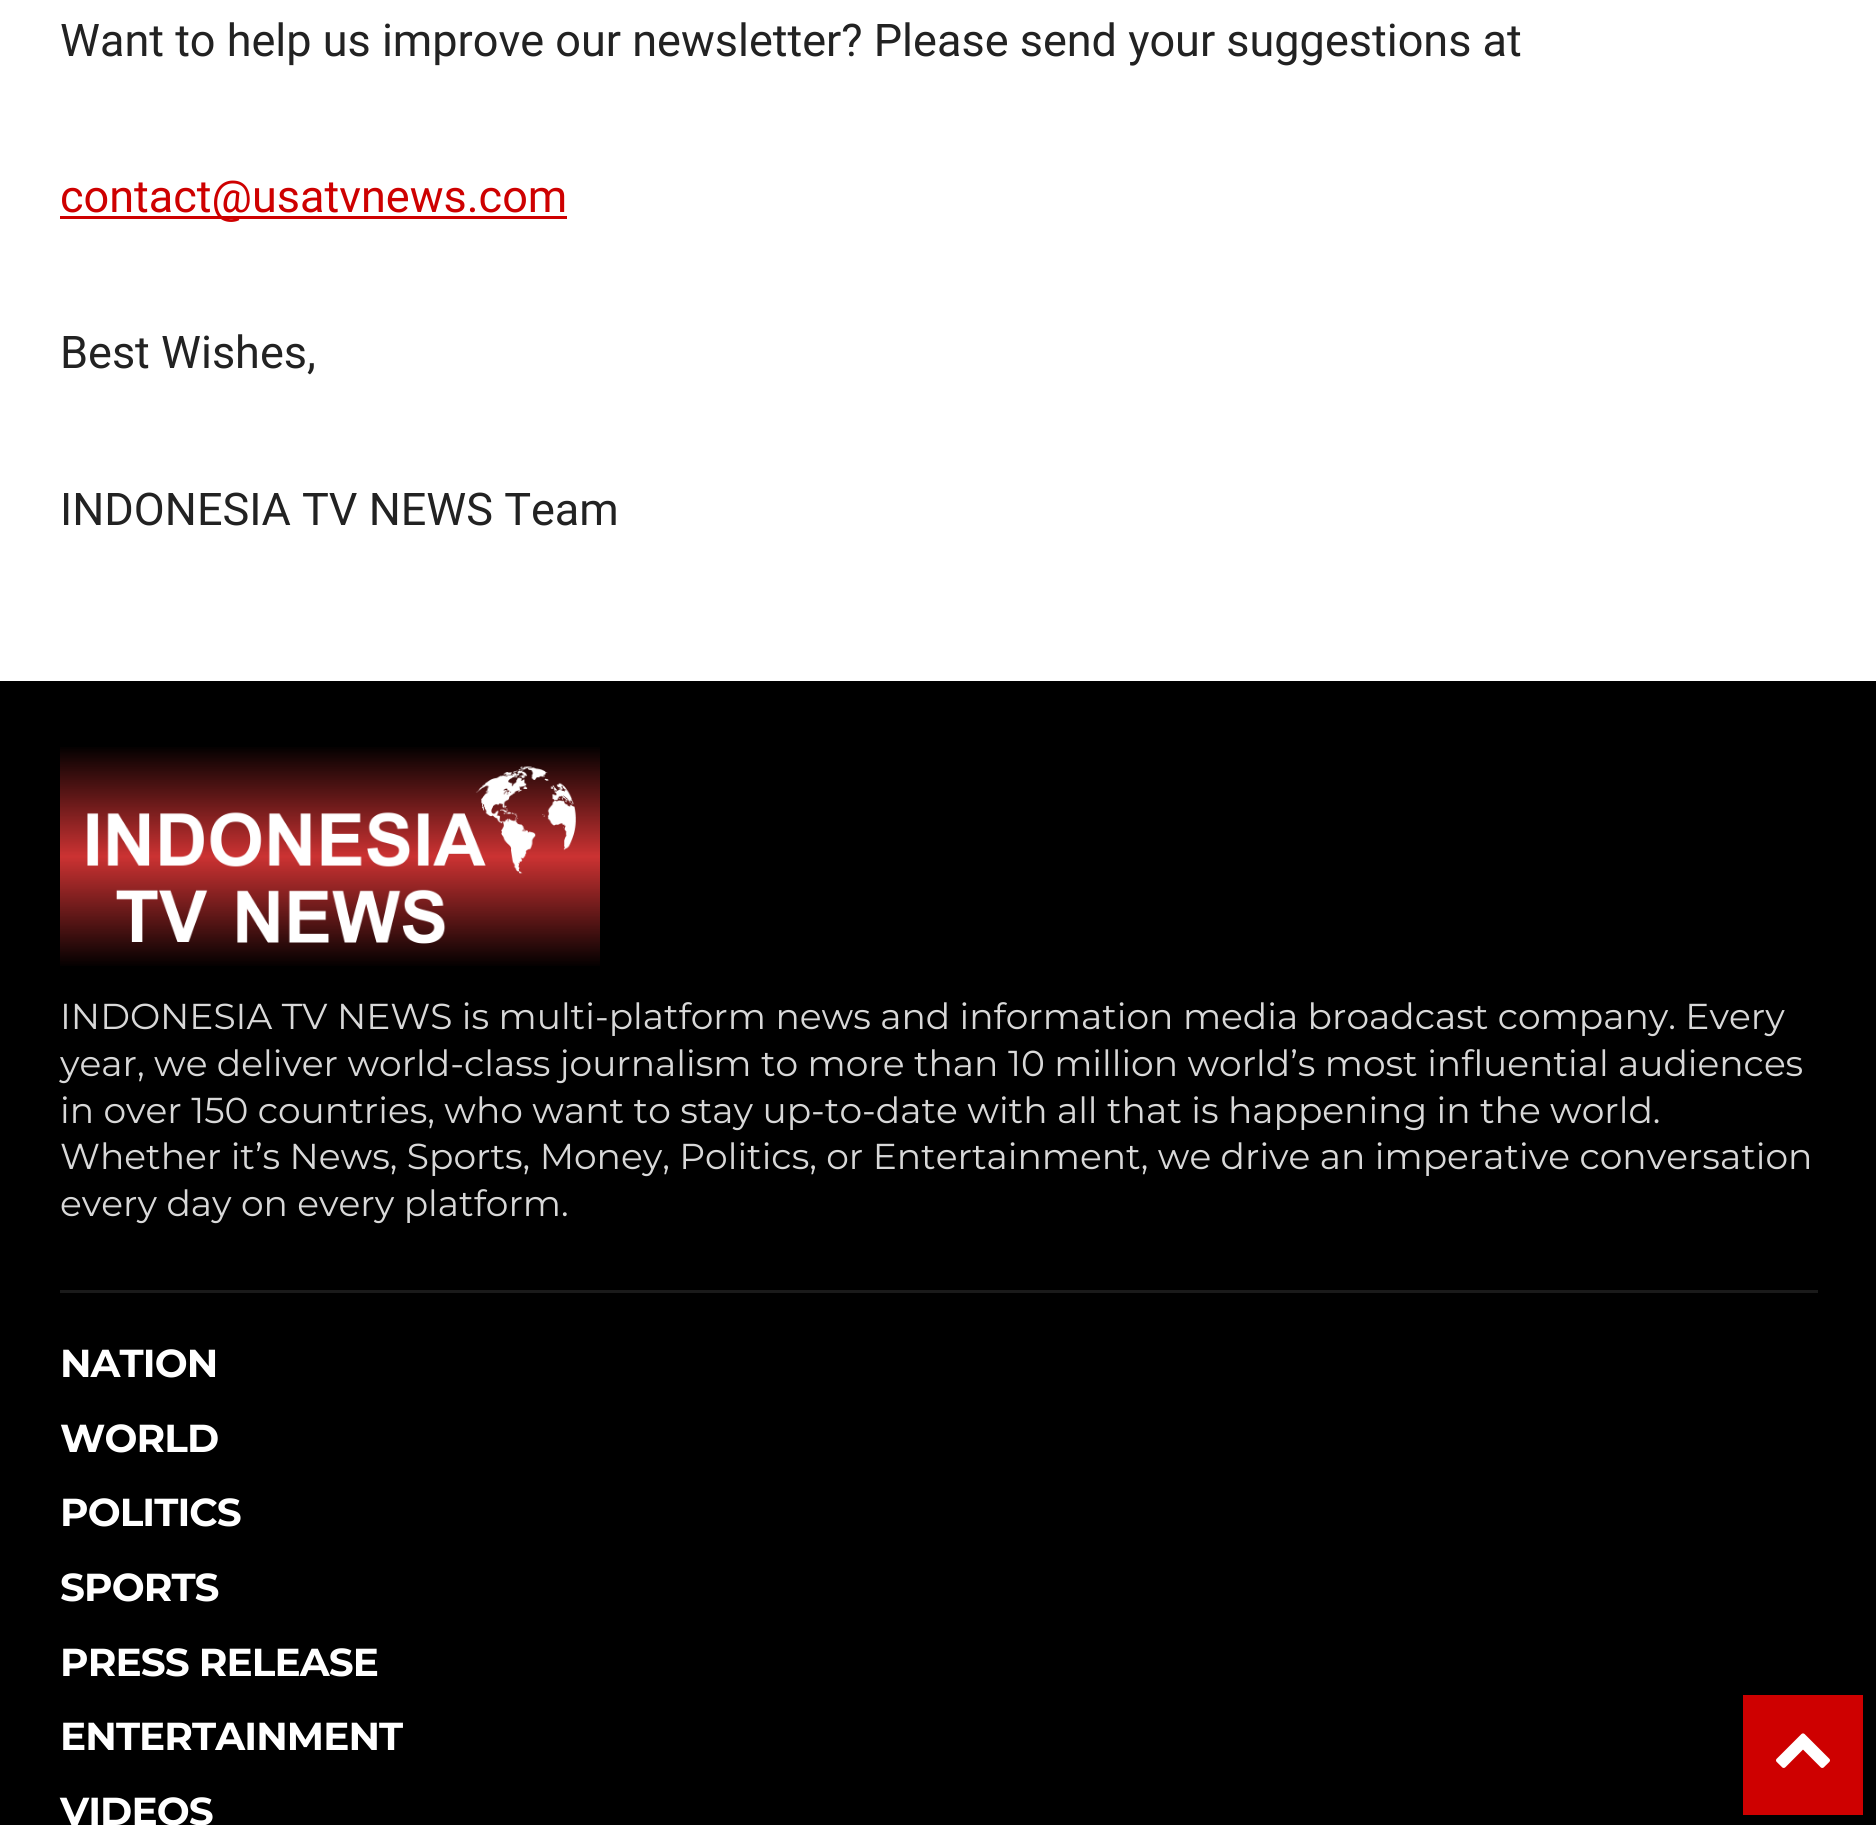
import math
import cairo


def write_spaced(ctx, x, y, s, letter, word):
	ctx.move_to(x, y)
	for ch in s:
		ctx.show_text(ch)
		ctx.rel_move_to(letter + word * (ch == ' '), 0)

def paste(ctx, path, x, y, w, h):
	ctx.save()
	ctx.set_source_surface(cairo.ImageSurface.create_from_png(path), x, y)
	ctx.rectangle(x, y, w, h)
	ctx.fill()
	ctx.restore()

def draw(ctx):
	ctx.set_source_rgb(1, 1, 1)
	ctx.paint()
	ctx.select_font_face('Roboto')
	ctx.set_font_size(45)
	ctx.set_source_rgb(0.133, 0.133, 0.133)
	ctx.move_to(60, 56)
	ctx.show_text('Want to help us improve our newsletter? Please send your suggestions at')
	ctx.set_source_rgb(0.808, 0, 0)
	ctx.rectangle(60, 216, 507, 3)
	ctx.fill()
	ctx.move_to(60, 212)
	ctx.show_text('contact@usatvnews.com')
	ctx.set_source_rgb(0.133, 0.133, 0.133)
	ctx.move_to(60, 368)
	ctx.show_text('Best Wishes,')
	ctx.move_to(60, 525)
	ctx.show_text('INDONESIA TV NEWS Team')
	ctx.set_source_rgb(0, 0, 0)
	ctx.rectangle(0, 681, 1876, 1144)
	ctx.fill()
	ctx.set_source_rgb(0.102, 0.102, 0.102)
	ctx.rectangle(60, 1290, 1758, 3)
	ctx.fill()
	paste(ctx, 'media/1.png', 60, 747, 540, 219)
	ctx.select_font_face('Montserrat')
	ctx.set_font_size(36)
	ctx.set_source_rgb(0.847, 0.847, 0.847)
	for x, y, s in [
		(60, 1029, 'INDONESIA TV NEWS is multi-platform news and information media broadcast company. Every'),
		(60, 1076, 'year, we deliver world-class journalism to more than 10 million world’s most influential audiences'),
		(60, 1123, 'in over 150 countries, who want to stay up-to-date with all that is happening in the world.'),
		(60, 1169, 'Whether it’s News, Sports, Money, Politics, or Entertainment, we drive an imperative conversation'),
		(60, 1216, 'every day on every platform.'),
	]:
		ctx.move_to(x, y)
		ctx.show_text(s)
	ctx.select_font_face('Montserrat', cairo.FONT_SLANT_NORMAL, cairo.FONT_WEIGHT_BOLD)
	ctx.set_font_size(39)
	ctx.set_source_rgb(1, 1, 1)
	for x, y, s in [
		(60, 1377, 'NATION'),
		(60, 1452, 'WORLD'),
		(60, 1526, 'POLITICS'),
		(60, 1601, 'SPORTS'),
		(60, 1676, 'PRESS RELEASE'),
		(60, 1750, 'ENTERTAINMENT'),
		(60, 1825, 'VIDEOS'),
	]:
		write_spaced(ctx, x, y, s, -0.9, 0)
	ctx.set_source_rgb(0.808, 0, 0)
	ctx.rectangle(1743, 1695, 120, 120)
	ctx.fill()
	paste(ctx, 'media/2.png', 1776, 1733, 54, 35)


surface = cairo.ImageSurface(cairo.FORMAT_RGB24, 1876, 1825)
ctx = cairo.Context(surface)
options = cairo.FontOptions()
options.set_hint_metrics(cairo.HINT_METRICS_OFF)
options.set_hint_style(cairo.HINT_STYLE_NONE)
ctx.set_font_options(options)
ctx.set_miter_limit(4)
draw(ctx)
surface.write_to_png('image.png')
